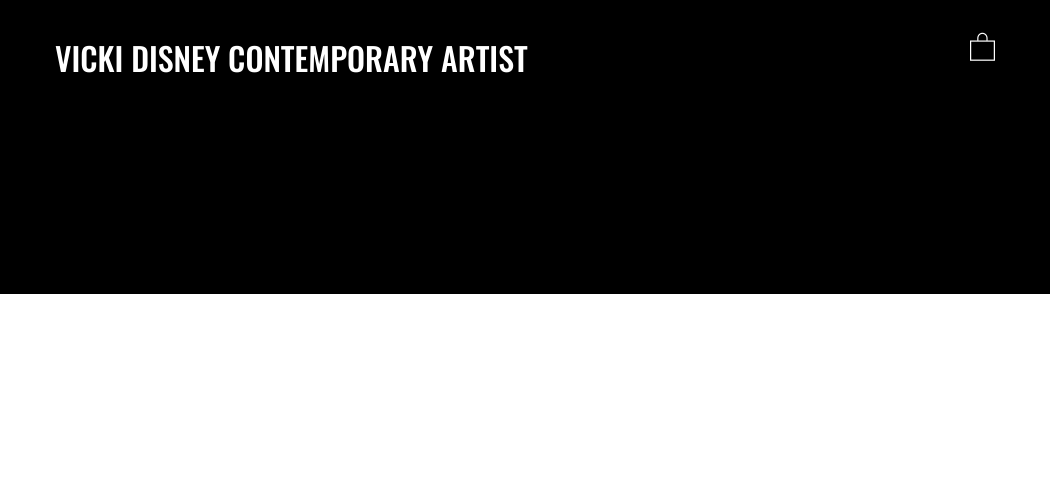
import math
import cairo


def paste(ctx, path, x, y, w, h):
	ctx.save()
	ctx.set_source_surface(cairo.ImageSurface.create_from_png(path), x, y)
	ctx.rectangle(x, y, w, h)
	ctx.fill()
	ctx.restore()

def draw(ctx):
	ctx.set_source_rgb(1, 1, 1)
	ctx.paint()
	ctx.set_source_rgb(0, 0, 0)
	ctx.rectangle(0, 0, 1050, 294)
	ctx.fill()
	ctx.select_font_face('Oswald Medium')
	ctx.set_font_size(32)
	ctx.set_source_rgb(1, 1, 1)
	ctx.move_to(55, 72)
	ctx.show_text('VICKI DISNEY CONTEMPORARY ARTIST')
	paste(ctx, 'media/1.png', 970, 32, 25, 29)


surface = cairo.ImageSurface(cairo.FORMAT_RGB24, 1050, 477)
ctx = cairo.Context(surface)
options = cairo.FontOptions()
options.set_hint_metrics(cairo.HINT_METRICS_OFF)
options.set_hint_style(cairo.HINT_STYLE_NONE)
ctx.set_font_options(options)
ctx.set_miter_limit(4)
draw(ctx)
surface.write_to_png('image.png')
